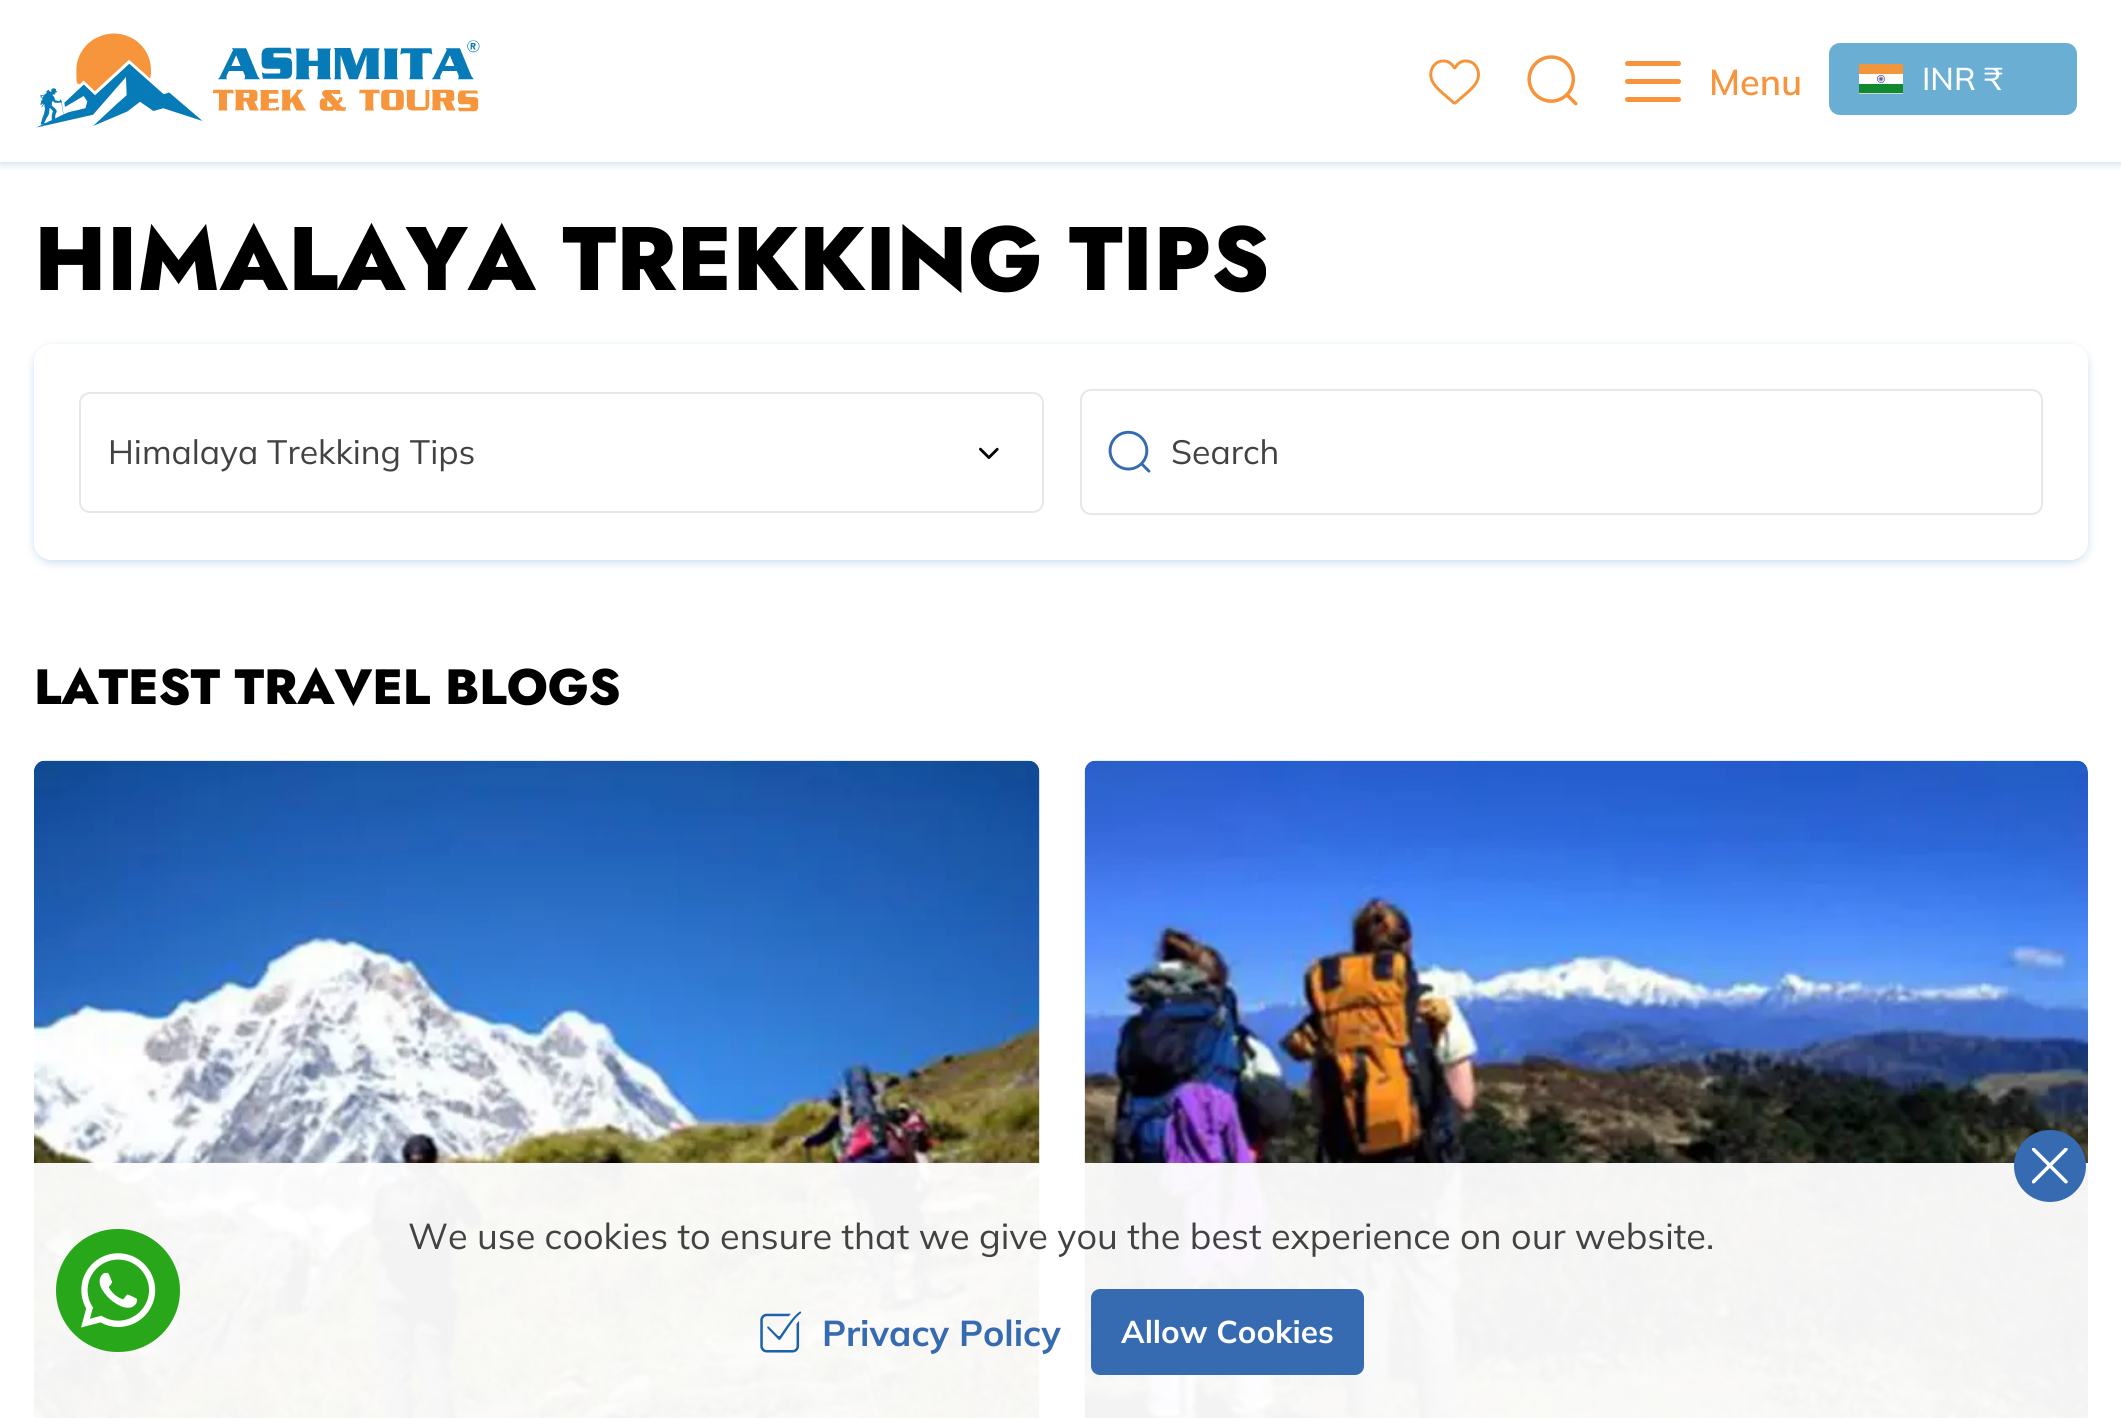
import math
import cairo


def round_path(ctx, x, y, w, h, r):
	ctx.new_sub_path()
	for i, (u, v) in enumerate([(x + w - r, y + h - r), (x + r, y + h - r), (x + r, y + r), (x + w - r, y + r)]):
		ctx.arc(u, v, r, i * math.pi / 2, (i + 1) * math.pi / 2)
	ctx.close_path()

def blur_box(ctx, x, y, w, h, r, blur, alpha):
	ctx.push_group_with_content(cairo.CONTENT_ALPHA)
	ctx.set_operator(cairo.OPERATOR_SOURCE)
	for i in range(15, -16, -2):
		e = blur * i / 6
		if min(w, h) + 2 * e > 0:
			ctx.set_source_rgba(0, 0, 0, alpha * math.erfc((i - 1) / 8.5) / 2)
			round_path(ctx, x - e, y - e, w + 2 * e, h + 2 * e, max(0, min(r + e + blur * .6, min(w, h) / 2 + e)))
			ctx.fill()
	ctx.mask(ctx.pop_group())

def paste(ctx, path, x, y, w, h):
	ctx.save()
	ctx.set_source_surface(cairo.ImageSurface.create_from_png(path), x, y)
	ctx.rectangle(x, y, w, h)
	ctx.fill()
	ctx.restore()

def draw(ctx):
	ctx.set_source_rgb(1, 1, 1)
	ctx.paint()
	ctx.save()
	ctx.rectangle(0, 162, 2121, 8)
	ctx.clip()
	ctx.set_source_rgb(0.008, 0.38, 0.702)
	blur_box(ctx, 0, 2, 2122, 162, 0, 4.5, 0.2)
	ctx.restore()
	paste(ctx, 'media/1.png', 36, 33, 444, 95)
	paste(ctx, 'media/2.png', 1429, 59, 51, 46)
	paste(ctx, 'media/3.png', 1527, 55, 51, 51)
	ctx.set_source_rgb(0.969, 0.58, 0.231)
	round_path(ctx, 1625, 61, 56, 5, 2.5)
	ctx.fill()
	round_path(ctx, 1625, 79, 56, 5, 2.5)
	ctx.fill()
	round_path(ctx, 1625, 97, 56, 5, 2.5)
	ctx.fill()
	ctx.select_font_face('Mulish SemiBold')
	ctx.set_font_size(36)
	ctx.move_to(1709, 95)
	ctx.show_text('Menu')
	ctx.set_source_rgb(0.416, 0.682, 0.827)
	round_path(ctx, 1829, 43, 248, 72, 11)
	ctx.fill()
	paste(ctx, 'media/4.png', 1859, 64, 44, 30)
	ctx.select_font_face('Mulish Medium')
	ctx.set_font_size(31.5)
	ctx.set_source_rgb(1, 1, 1)
	ctx.move_to(1922, 90)
	ctx.show_text('INR ₹')
	ctx.select_font_face('Jost ExtraBold')
	ctx.set_font_size(90)
	ctx.set_source_rgb(0, 0, 0)
	ctx.move_to(34, 290)
	ctx.show_text('HIMALAYA TREKKING TIPS')
	ctx.save()
	ctx.set_fill_rule(cairo.FILL_RULE_EVEN_ODD)
	ctx.new_path()
	ctx.move_to(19, 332)
	ctx.line_to(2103, 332)
	ctx.line_to(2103, 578)
	ctx.line_to(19, 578)
	ctx.close_path()
	ctx.move_to(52, 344)
	ctx.line_to(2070, 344)
	ctx.curve_to(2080, 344, 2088, 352, 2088, 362)
	ctx.line_to(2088, 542)
	ctx.curve_to(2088, 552, 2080, 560, 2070, 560)
	ctx.line_to(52, 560)
	ctx.curve_to(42, 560, 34, 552, 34, 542)
	ctx.line_to(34, 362)
	ctx.curve_to(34, 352, 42, 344, 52, 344)
	ctx.close_path()
	ctx.clip()
	ctx.set_source_rgb(0.008, 0.38, 0.702)
	blur_box(ctx, 34, 347, 2054, 216, 18, 4.5, 0.2)
	ctx.restore()
	paste(ctx, 'media/5.png', 979, 447, 20, 12)
	round_path(ctx, 80, 393, 963, 119, 10)
	ctx.set_source_rgb(0.898, 0.906, 0.922)
	ctx.stroke()
	ctx.select_font_face('Mulish')
	ctx.set_font_size(33.75)
	ctx.set_source_rgb(0.259, 0.259, 0.259)
	ctx.move_to(108, 464)
	ctx.show_text('Himalaya Trekking Tips')
	round_path(ctx, 1081, 390, 961, 124, 10)
	ctx.set_source_rgb(0.898, 0.906, 0.922)
	ctx.stroke()
	paste(ctx, 'media/6.png', 1108, 430, 43, 43)
	ctx.set_source_rgb(0.259, 0.259, 0.259)
	ctx.move_to(1171, 464)
	ctx.show_text('Search')
	ctx.select_font_face('Jost ExtraBold')
	ctx.set_font_size(49.5)
	ctx.set_source_rgb(0, 0, 0)
	ctx.move_to(34, 704)
	ctx.show_text('LATEST TRAVEL BLOGS')
	ctx.set_source_rgb(0.922, 0.957, 0.973)
	round_path(ctx, 34, 761, 1006, 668, 11)
	ctx.fill()
	paste(ctx, 'media/7.png', 34, 760, 1006, 658)
	round_path(ctx, 1085, 761, 1003, 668, 11)
	ctx.fill()
	paste(ctx, 'media/8.png', 1084, 760, 1004, 658)
	ctx.set_source_rgba(1, 1, 1, 0.95)
	ctx.rectangle(34, 1163, 2054, 255)
	ctx.fill()
	ctx.set_source_rgb(0.161, 0.655, 0.102)
	round_path(ctx, 56, 1229, 124, 123, 61.5)
	ctx.fill()
	paste(ctx, 'media/9.png', 81, 1253, 75, 75)
	ctx.set_source_rgb(0.212, 0.42, 0.698)
	ctx.arc(2050, 1166, 36, 0, 2 * math.pi)
	ctx.fill()
	paste(ctx, 'media/10.png', 2032, 1148, 36, 36)
	ctx.select_font_face('Mulish')
	ctx.set_font_size(36)
	ctx.set_source_rgb(0.259, 0.259, 0.259)
	ctx.move_to(408, 1249)
	ctx.show_text('We use cookies to ensure that we give you the best experience on our website.')
	paste(ctx, 'media/11.png', 760, 1311, 42, 42)
	ctx.select_font_face('Mulish', cairo.FONT_SLANT_NORMAL, cairo.FONT_WEIGHT_BOLD)
	ctx.set_source_rgb(0.212, 0.42, 0.698)
	ctx.move_to(822, 1346)
	ctx.show_text('Privacy Policy')
	round_path(ctx, 1092, 1290, 271, 84, 8)
	ctx.fill_preserve()
	ctx.stroke()
	ctx.set_font_size(31.5)
	ctx.set_source_rgb(1, 1, 1)
	ctx.move_to(1121, 1343)
	ctx.show_text('Allow Cookies')


surface = cairo.ImageSurface(cairo.FORMAT_RGB24, 2121, 1418)
ctx = cairo.Context(surface)
options = cairo.FontOptions()
options.set_hint_metrics(cairo.HINT_METRICS_OFF)
options.set_hint_style(cairo.HINT_STYLE_NONE)
ctx.set_font_options(options)
ctx.set_miter_limit(4)
draw(ctx)
surface.write_to_png('image.png')
